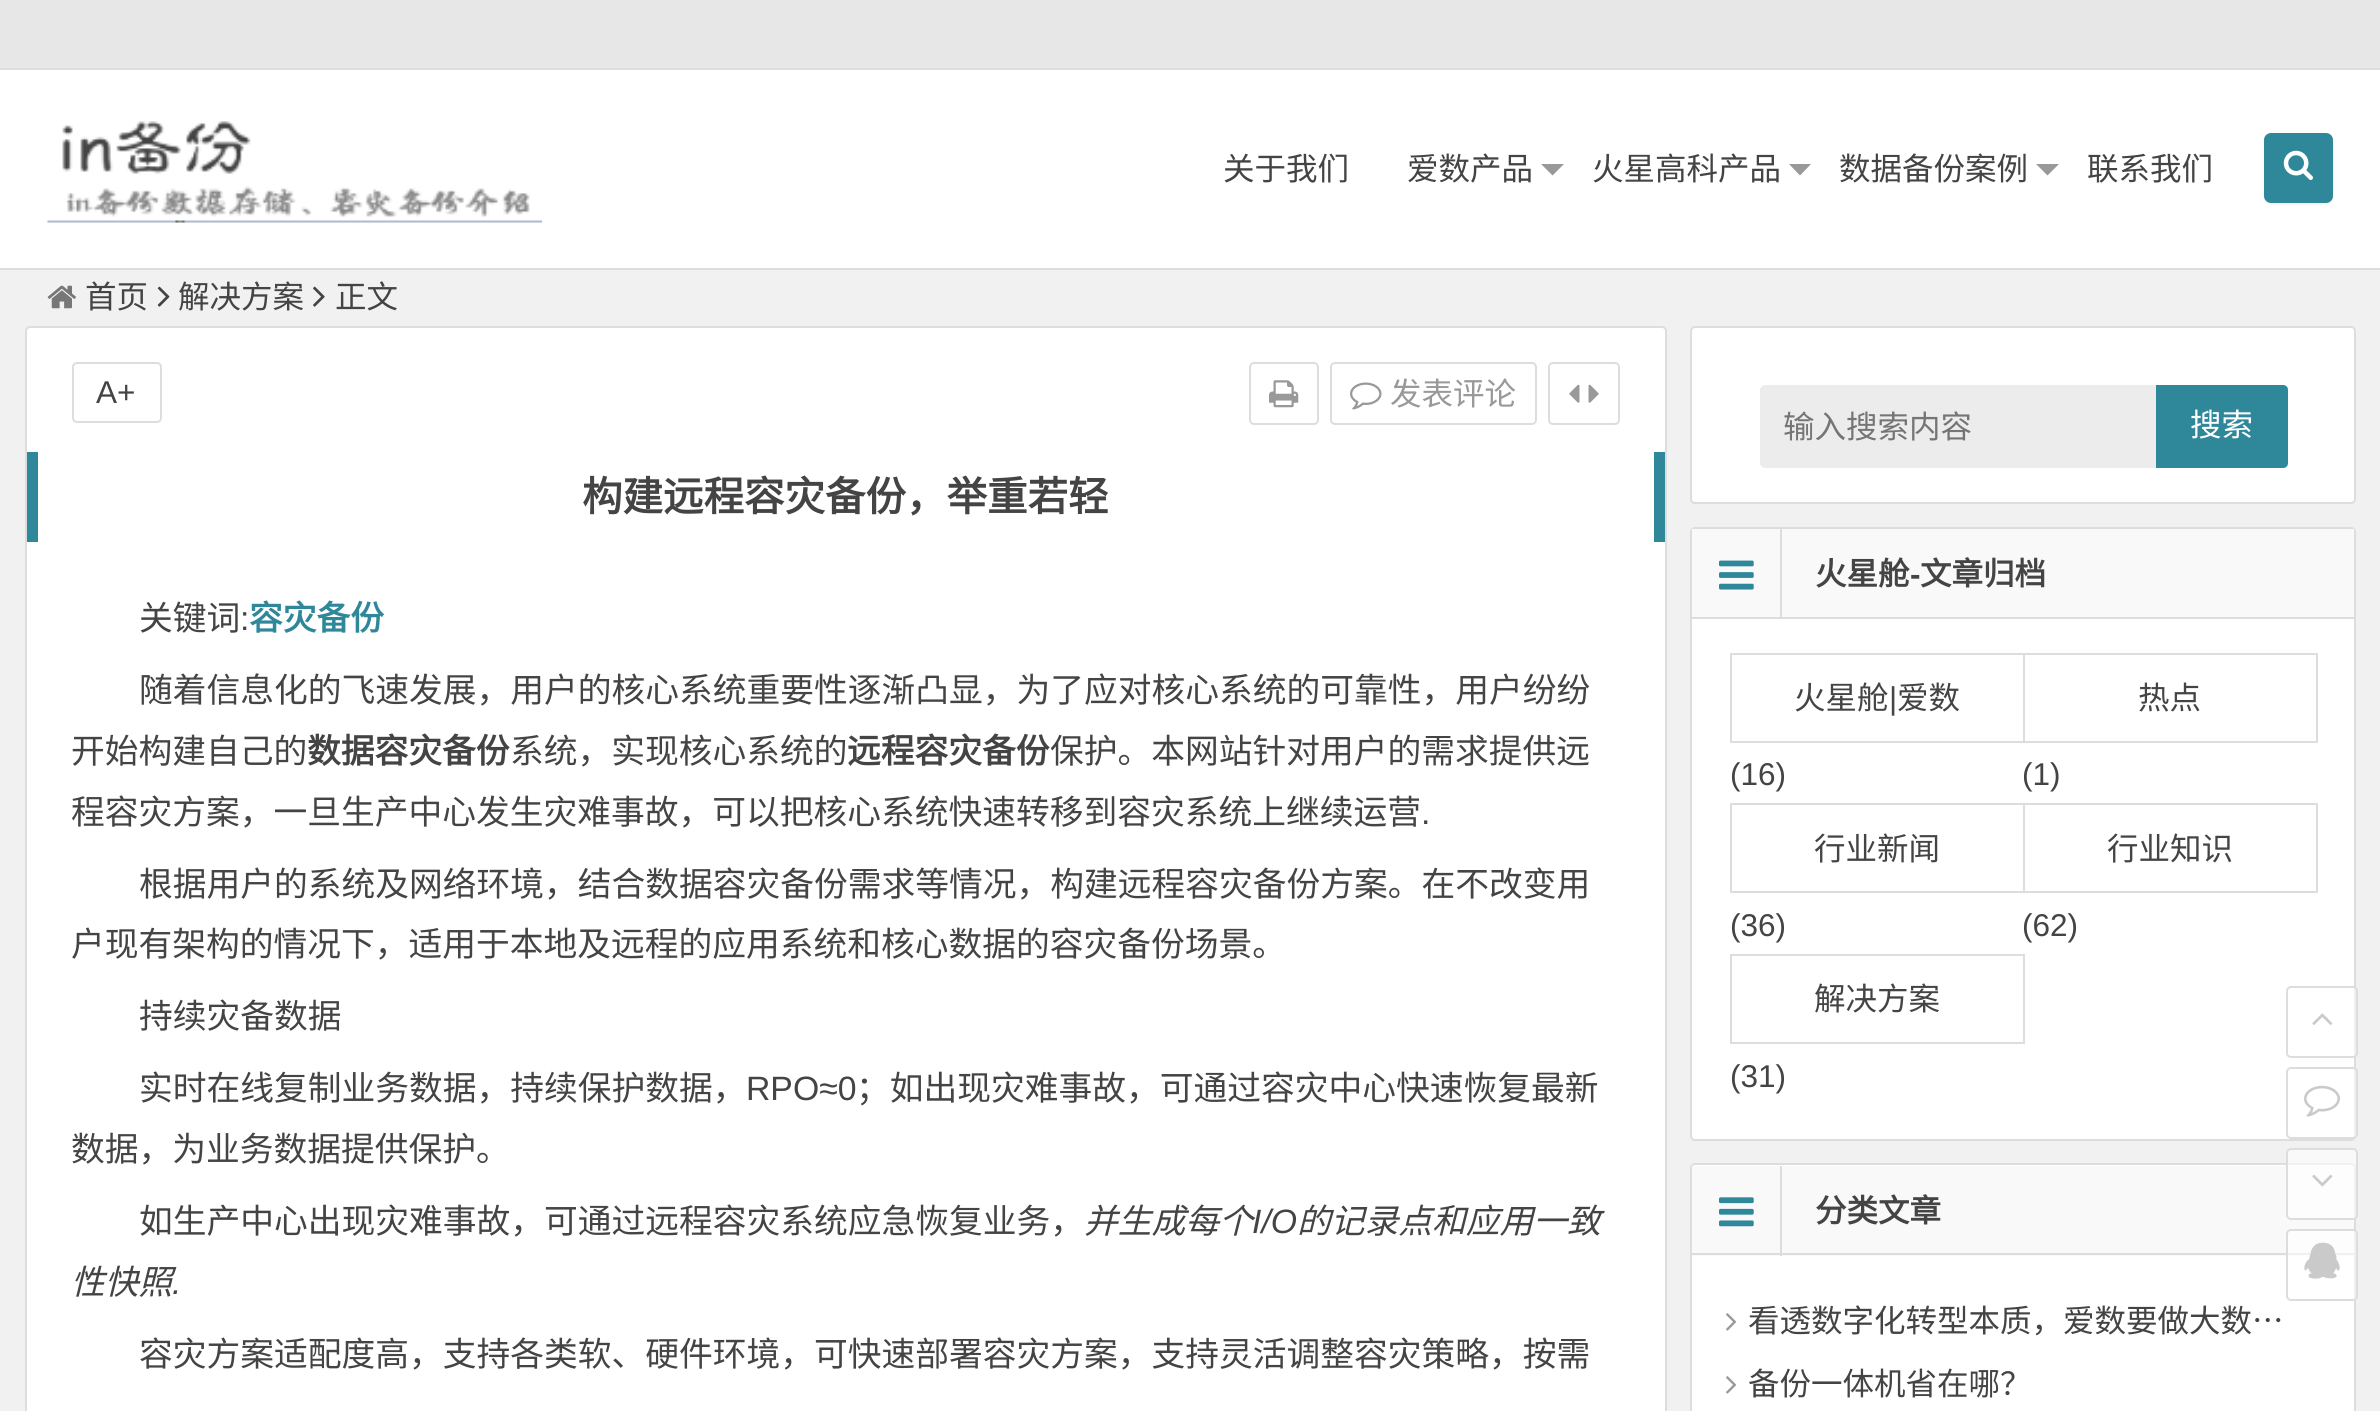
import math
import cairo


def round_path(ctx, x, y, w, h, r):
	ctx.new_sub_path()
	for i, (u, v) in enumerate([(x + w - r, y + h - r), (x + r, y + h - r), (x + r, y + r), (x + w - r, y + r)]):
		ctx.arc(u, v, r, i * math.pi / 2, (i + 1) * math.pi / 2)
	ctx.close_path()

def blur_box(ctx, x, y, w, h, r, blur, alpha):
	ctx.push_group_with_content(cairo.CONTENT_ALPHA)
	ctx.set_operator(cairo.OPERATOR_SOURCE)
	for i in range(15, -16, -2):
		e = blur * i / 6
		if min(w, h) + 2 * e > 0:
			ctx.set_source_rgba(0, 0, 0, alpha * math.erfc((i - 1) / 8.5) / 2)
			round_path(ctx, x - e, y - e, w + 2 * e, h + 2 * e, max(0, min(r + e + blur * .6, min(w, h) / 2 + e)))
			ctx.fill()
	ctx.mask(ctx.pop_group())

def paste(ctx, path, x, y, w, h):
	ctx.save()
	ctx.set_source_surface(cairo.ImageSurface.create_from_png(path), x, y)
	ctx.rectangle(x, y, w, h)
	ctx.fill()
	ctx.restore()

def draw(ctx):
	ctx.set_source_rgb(0.945, 0.945, 0.945)
	ctx.paint()
	ctx.set_source_rgb(0.906, 0.906, 0.906)
	ctx.rectangle(0, 0, 2380, 68)
	ctx.fill()
	ctx.set_source_rgb(0.871, 0.871, 0.871)
	ctx.rectangle(0, 68, 2380, 2)
	ctx.fill()
	ctx.set_source_rgb(1, 1, 1)
	ctx.rectangle(0, 70, 2380, 198)
	ctx.fill()
	ctx.set_source_rgb(0.867, 0.867, 0.867)
	ctx.rectangle(0, 268, 2380, 2)
	ctx.fill()
	paste(ctx, 'media/1.png', 47, 121, 496, 102)
	ctx.select_font_face('Noto Sans CJK SC')
	ctx.set_font_size(31.5)
	ctx.set_source_rgb(0.267, 0.267, 0.267)
	ctx.move_to(1223, 180)
	ctx.show_text('关于我们')
	ctx.move_to(1407, 180)
	ctx.show_text('爱数产品')
	ctx.set_source_rgb(0.6, 0.6, 0.6)
	ctx.new_path()
	ctx.move_to(1541, 164)
	ctx.line_to(1564, 164)
	ctx.line_to(1552.5, 175.5)
	ctx.close_path()
	ctx.fill()
	ctx.set_source_rgb(0.267, 0.267, 0.267)
	ctx.move_to(1592, 180)
	ctx.show_text('火星高科产品')
	ctx.set_source_rgb(0.6, 0.6, 0.6)
	ctx.new_path()
	ctx.move_to(1789, 164)
	ctx.line_to(1811, 164)
	ctx.line_to(1800, 175.5)
	ctx.close_path()
	ctx.fill()
	ctx.set_source_rgb(0.267, 0.267, 0.267)
	ctx.move_to(1839, 180)
	ctx.show_text('数据备份案例')
	ctx.set_source_rgb(0.6, 0.6, 0.6)
	ctx.new_path()
	ctx.move_to(2036, 164)
	ctx.line_to(2059, 164)
	ctx.line_to(2047.5, 175.5)
	ctx.close_path()
	ctx.fill()
	ctx.set_source_rgb(0.267, 0.267, 0.267)
	ctx.move_to(2087, 180)
	ctx.show_text('联系我们')
	ctx.set_source_rgb(0, 0, 0)
	blur_box(ctx, 2264, 135, 69, 70, 7, 1, 0.04)
	ctx.set_source_rgb(0.184, 0.533, 0.604)
	round_path(ctx, 2265, 134, 67, 68, 6)
	ctx.fill_preserve()
	ctx.stroke()
	paste(ctx, 'media/2.png', 2283, 150, 30, 30)
	paste(ctx, 'media/3.png', 47, 285, 29, 24)
	ctx.set_source_rgb(0.267, 0.267, 0.267)
	ctx.move_to(85, 308)
	ctx.show_text('首页')
	paste(ctx, 'media/4.png', 157, 286, 13, 21)
	ctx.move_to(178, 308)
	ctx.show_text('解决方案')
	paste(ctx, 'media/5.png', 313, 286, 12, 21)
	ctx.move_to(335, 308)
	ctx.show_text('正文')
	ctx.set_source_rgb(1, 1, 1)
	round_path(ctx, 26, 327, 1640, 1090, 4)
	ctx.fill_preserve()
	ctx.set_source_rgb(0.867, 0.867, 0.867)
	ctx.stroke()
	round_path(ctx, 73, 363, 88, 59, 4)
	ctx.stroke()
	ctx.select_font_face('Liberation Sans')
	ctx.set_source_rgb(0.267, 0.267, 0.267)
	ctx.move_to(96, 403)
	ctx.show_text('A+')
	round_path(ctx, 1250, 363, 68, 61, 4)
	ctx.set_source_rgb(0.867, 0.867, 0.867)
	ctx.stroke()
	paste(ctx, 'media/6.png', 1269, 380, 30, 28)
	round_path(ctx, 1331, 363, 205, 61, 4)
	ctx.stroke()
	paste(ctx, 'media/7.png', 1350, 382, 32, 28)
	ctx.select_font_face('Noto Sans CJK SC')
	ctx.set_source_rgb(0.6, 0.6, 0.6)
	ctx.move_to(1390, 405)
	ctx.show_text('发表评论')
	round_path(ctx, 1549, 363, 70, 61, 4)
	ctx.set_source_rgb(0.867, 0.867, 0.867)
	ctx.stroke()
	paste(ctx, 'media/8.png', 1569, 384, 11, 19)
	paste(ctx, 'media/9.png', 1588, 384, 11, 19)
	ctx.set_font_size(33.75)
	ctx.set_source_rgb(0.267, 0.267, 0.267)
	ctx.move_to(139, 630)
	ctx.show_text('关键词')
	ctx.select_font_face('Liberation Sans')
	ctx.move_to(240, 630)
	ctx.show_text(':')
	ctx.select_font_face('Noto Sans CJK SC', cairo.FONT_SLANT_NORMAL, cairo.FONT_WEIGHT_BOLD)
	ctx.set_source_rgb(0.184, 0.533, 0.604)
	ctx.move_to(249, 630)
	ctx.show_text('容灾备份')
	ctx.select_font_face('Noto Sans CJK SC')
	ctx.set_source_rgb(0.267, 0.267, 0.267)
	ctx.move_to(139, 702)
	ctx.show_text('随着信息化的飞速发展，用户的核心系统重要性逐渐凸显，为了应对核心系统的可靠性，用户纷纷')
	ctx.move_to(71, 763)
	ctx.show_text('开始构建自己的')
	ctx.select_font_face('Noto Sans CJK SC', cairo.FONT_SLANT_NORMAL, cairo.FONT_WEIGHT_BOLD)
	ctx.move_to(307, 763)
	ctx.show_text('数据容灾备份')
	ctx.select_font_face('Noto Sans CJK SC')
	ctx.move_to(510, 763)
	ctx.show_text('系统，实现核心系统的')
	ctx.select_font_face('Noto Sans CJK SC', cairo.FONT_SLANT_NORMAL, cairo.FONT_WEIGHT_BOLD)
	ctx.move_to(847, 763)
	ctx.show_text('远程容灾备份')
	ctx.select_font_face('Noto Sans CJK SC')
	ctx.move_to(1050, 763)
	ctx.show_text('保护。本网站针对用户的需求提供远')
	ctx.move_to(71, 824)
	ctx.show_text('程容灾方案，一旦生产中心发生灾难事故，可以把核心系统快速转移到容灾系统上继续运营')
	ctx.select_font_face('Liberation Sans')
	ctx.move_to(1421, 824)
	ctx.show_text('.')
	ctx.select_font_face('Noto Sans CJK SC')
	for x, y, s in [
		(139, 896, '根据用户的系统及网络环境，结合数据容灾备份需求等情况，构建远程容灾备份方案。在不改变用'),
		(71, 956, '户现有架构的情况下，适用于本地及远程的应用系统和核心数据的容灾备份场景。'),
		(139, 1028, '持续灾备数据'),
		(139, 1100, '实时在线复制业务数据，持续保护数据，'),
	]:
		ctx.move_to(x, y)
		ctx.show_text(s)
	ctx.select_font_face('Liberation Sans')
	ctx.move_to(746, 1100)
	ctx.show_text('RPO≈0')
	ctx.select_font_face('Noto Sans CJK SC')
	for x, y, s in [
		(856, 1100, '；如出现灾难事故，可通过容灾中心快速恢复最新'),
		(71, 1161, '数据，为业务数据提供保护。'),
		(139, 1233, '如生产中心出现灾难事故，可通过远程容灾系统应急恢复业务，'),
	]:
		ctx.move_to(x, y)
		ctx.show_text(s)
	ctx.select_font_face('Noto Sans CJK SC', cairo.FONT_SLANT_ITALIC)
	ctx.move_to(1084, 1233)
	ctx.show_text('并生成每个')
	ctx.select_font_face('Liberation Sans', cairo.FONT_SLANT_ITALIC)
	ctx.move_to(1252, 1233)
	ctx.show_text('I/O')
	ctx.select_font_face('Noto Sans CJK SC', cairo.FONT_SLANT_ITALIC)
	ctx.move_to(1297, 1233)
	ctx.show_text('的记录点和应用一致')
	ctx.move_to(71, 1294)
	ctx.show_text('性快照')
	ctx.select_font_face('Liberation Sans', cairo.FONT_SLANT_ITALIC)
	ctx.move_to(172, 1294)
	ctx.show_text('.')
	ctx.select_font_face('Noto Sans CJK SC')
	ctx.move_to(139, 1366)
	ctx.show_text('容灾方案适配度高，支持各类软、硬件环境，可快速部署容灾方案，支持灵活调整容灾策略，按需')
	ctx.set_source_rgb(0.184, 0.533, 0.604)
	ctx.rectangle(1654, 452, 11, 90)
	ctx.fill()
	ctx.rectangle(27, 452, 11, 90)
	ctx.fill()
	ctx.select_font_face('Noto Sans CJK SC', cairo.FONT_SLANT_NORMAL, cairo.FONT_WEIGHT_BOLD)
	ctx.set_font_size(40.5)
	ctx.set_source_rgb(0.267, 0.267, 0.267)
	ctx.move_to(582, 511)
	ctx.show_text('构建远程容灾备份，举重若轻')
	ctx.set_source_rgb(1, 1, 1)
	round_path(ctx, 1691, 327, 664, 176, 4)
	ctx.fill_preserve()
	ctx.set_source_rgb(0.867, 0.867, 0.867)
	ctx.stroke()
	ctx.set_source_rgb(0.922, 0.922, 0.922)
	ctx.new_path()
	ctx.move_to(1765, 386)
	ctx.line_to(2155, 386)
	ctx.line_to(2155, 467)
	ctx.line_to(1765, 467)
	ctx.curve_to(1763, 467, 1761, 465, 1761, 463)
	ctx.line_to(1761, 390)
	ctx.curve_to(1761, 388, 1763, 386, 1765, 386)
	ctx.close_path()
	ctx.fill_preserve()
	ctx.stroke()
	ctx.select_font_face('Noto Sans CJK SC')
	ctx.set_font_size(31.5)
	ctx.set_source_rgb(0.459, 0.459, 0.459)
	ctx.move_to(1783, 438)
	ctx.show_text('输入搜索内容')
	ctx.set_source_rgb(0.184, 0.533, 0.604)
	ctx.new_path()
	ctx.move_to(2156, 385)
	ctx.line_to(2283, 385)
	ctx.curve_to(2286, 385, 2288, 387, 2288, 390)
	ctx.line_to(2288, 463)
	ctx.curve_to(2288, 466, 2286, 468, 2283, 468)
	ctx.line_to(2156, 468)
	ctx.close_path()
	ctx.fill()
	ctx.set_source_rgb(1, 1, 1)
	ctx.move_to(2190, 436)
	ctx.show_text('搜索')
	round_path(ctx, 1691, 528, 664, 612, 4)
	ctx.fill_preserve()
	ctx.set_source_rgb(0.867, 0.867, 0.867)
	ctx.stroke()
	ctx.set_source_rgb(0.973, 0.973, 0.973)
	ctx.rectangle(1692, 529, 662, 88)
	ctx.fill()
	ctx.set_source_rgb(0.867, 0.867, 0.867)
	ctx.rectangle(1692, 617, 662, 2)
	ctx.rectangle(1780, 529, 2, 90)
	ctx.fill()
	paste(ctx, 'media/10.png', 1719, 560, 35, 30)
	ctx.select_font_face('Noto Sans CJK SC', cairo.FONT_SLANT_NORMAL, cairo.FONT_WEIGHT_BOLD)
	ctx.set_source_rgb(0.267, 0.267, 0.267)
	ctx.move_to(1815, 585)
	ctx.show_text('火星舱')
	ctx.select_font_face('Liberation Sans', cairo.FONT_SLANT_NORMAL, cairo.FONT_WEIGHT_BOLD)
	ctx.move_to(1910, 585)
	ctx.show_text('-')
	ctx.select_font_face('Noto Sans CJK SC', cairo.FONT_SLANT_NORMAL, cairo.FONT_WEIGHT_BOLD)
	ctx.move_to(1920, 585)
	ctx.show_text('文章归档')
	ctx.rectangle(1731, 654, 293, 88)
	ctx.set_source_rgb(0.867, 0.867, 0.867)
	ctx.stroke()
	ctx.select_font_face('Noto Sans CJK SC')
	ctx.set_source_rgb(0.267, 0.267, 0.267)
	ctx.move_to(1794, 709)
	ctx.show_text('火星舱')
	ctx.select_font_face('Liberation Sans')
	ctx.move_to(1889, 709)
	ctx.show_text('|')
	ctx.select_font_face('Noto Sans CJK SC')
	ctx.move_to(1897, 709)
	ctx.show_text('爱数')
	ctx.select_font_face('Liberation Sans')
	ctx.move_to(1730, 785)
	ctx.show_text('(16)')
	ctx.rectangle(2024, 654, 293, 88)
	ctx.set_source_rgb(0.867, 0.867, 0.867)
	ctx.stroke()
	ctx.select_font_face('Noto Sans CJK SC')
	ctx.set_source_rgb(0.267, 0.267, 0.267)
	ctx.move_to(2138, 709)
	ctx.show_text('热点')
	ctx.select_font_face('Liberation Sans')
	ctx.move_to(2022, 785)
	ctx.show_text('(1)')
	ctx.rectangle(1731, 804, 293, 88)
	ctx.set_source_rgb(0.867, 0.867, 0.867)
	ctx.stroke()
	ctx.select_font_face('Noto Sans CJK SC')
	ctx.set_source_rgb(0.267, 0.267, 0.267)
	ctx.move_to(1814, 860)
	ctx.show_text('行业新闻')
	ctx.select_font_face('Liberation Sans')
	ctx.move_to(1730, 936)
	ctx.show_text('(36)')
	ctx.rectangle(2024, 804, 293, 88)
	ctx.set_source_rgb(0.867, 0.867, 0.867)
	ctx.stroke()
	ctx.select_font_face('Noto Sans CJK SC')
	ctx.set_source_rgb(0.267, 0.267, 0.267)
	ctx.move_to(2107, 860)
	ctx.show_text('行业知识')
	ctx.select_font_face('Liberation Sans')
	ctx.move_to(2022, 936)
	ctx.show_text('(62)')
	ctx.rectangle(1731, 955, 293, 88)
	ctx.set_source_rgb(0.867, 0.867, 0.867)
	ctx.stroke()
	ctx.select_font_face('Noto Sans CJK SC')
	ctx.set_source_rgb(0.267, 0.267, 0.267)
	ctx.move_to(1814, 1010)
	ctx.show_text('解决方案')
	ctx.select_font_face('Liberation Sans')
	ctx.move_to(1730, 1087)
	ctx.show_text('(31)')
	ctx.set_source_rgb(1, 1, 1)
	round_path(ctx, 1691, 1164, 664, 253, 4)
	ctx.fill_preserve()
	ctx.set_source_rgb(0.867, 0.867, 0.867)
	ctx.stroke()
	ctx.set_source_rgb(0.973, 0.973, 0.973)
	ctx.rectangle(1692, 1166, 662, 90)
	ctx.fill()
	ctx.set_source_rgb(0.867, 0.867, 0.867)
	ctx.rectangle(1692, 1253, 662, 2)
	ctx.rectangle(1780, 1166, 2, 90)
	ctx.fill()
	paste(ctx, 'media/11.png', 1719, 1197, 35, 30)
	ctx.select_font_face('Noto Sans CJK SC', cairo.FONT_SLANT_NORMAL, cairo.FONT_WEIGHT_BOLD)
	ctx.set_source_rgb(0.267, 0.267, 0.267)
	ctx.move_to(1815, 1222)
	ctx.show_text('分类文章')
	paste(ctx, 'media/12.png', 1726, 1313, 11, 18)
	ctx.select_font_face('Noto Sans CJK SC')
	ctx.move_to(1748, 1332)
	ctx.show_text('看透数字化转型本质，爱数要做大数…')
	paste(ctx, 'media/12.png', 1726, 1376, 11, 18)
	ctx.move_to(1748, 1395)
	ctx.show_text('备份一体机省在哪？')
	ctx.set_source_rgba(1, 1, 1, 0.6)
	round_path(ctx, 2287, 987, 70, 70, 4)
	ctx.fill_preserve()
	ctx.set_source_rgb(0.867, 0.867, 0.867)
	ctx.stroke()
	paste(ctx, 'media/13.png', 2312, 1013, 21, 12)
	ctx.set_source_rgba(1, 1, 1, 0.6)
	round_path(ctx, 2287, 1068, 70, 70, 4)
	ctx.fill_preserve()
	ctx.set_source_rgb(0.867, 0.867, 0.867)
	ctx.stroke()
	paste(ctx, 'media/14.png', 2304, 1085, 36, 32)
	ctx.set_source_rgba(1, 1, 1, 0.6)
	round_path(ctx, 2287, 1149, 70, 70, 4)
	ctx.fill_preserve()
	ctx.set_source_rgb(0.867, 0.867, 0.867)
	ctx.stroke()
	paste(ctx, 'media/15.png', 2312, 1174, 21, 13)
	ctx.set_source_rgba(1, 1, 1, 0.6)
	round_path(ctx, 2287, 1230, 70, 70, 4)
	ctx.fill_preserve()
	ctx.set_source_rgb(0.867, 0.867, 0.867)
	ctx.stroke()
	paste(ctx, 'media/16.png', 2304, 1242, 36, 37)


surface = cairo.ImageSurface(cairo.FORMAT_RGB24, 2380, 1411)
ctx = cairo.Context(surface)
options = cairo.FontOptions()
options.set_hint_metrics(cairo.HINT_METRICS_OFF)
options.set_hint_style(cairo.HINT_STYLE_NONE)
ctx.set_font_options(options)
ctx.set_miter_limit(4)
draw(ctx)
surface.write_to_png('image.png')
